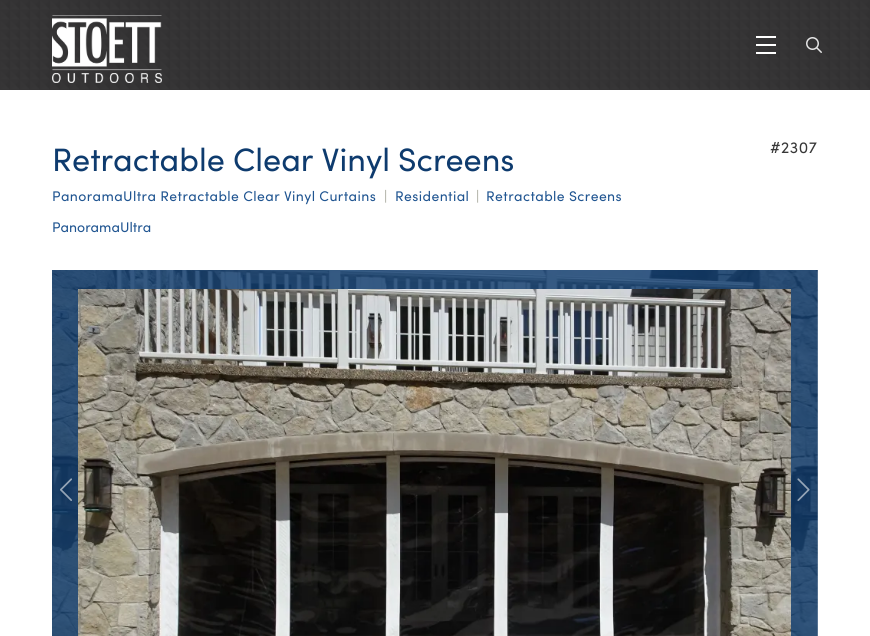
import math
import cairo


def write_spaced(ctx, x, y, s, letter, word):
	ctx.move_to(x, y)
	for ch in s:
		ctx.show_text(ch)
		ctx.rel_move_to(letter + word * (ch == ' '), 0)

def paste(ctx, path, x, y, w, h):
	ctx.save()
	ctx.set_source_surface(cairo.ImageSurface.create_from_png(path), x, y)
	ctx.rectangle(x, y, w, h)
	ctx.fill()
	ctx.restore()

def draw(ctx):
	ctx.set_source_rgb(1, 1, 1)
	ctx.paint()
	paste(ctx, 'media/1.png', 0, 0, 870, 90)
	paste(ctx, 'media/2.png', 52, 15, 110, 68)
	ctx.set_source_rgb(1, 1, 1)
	ctx.rectangle(756, 36, 20, 2)
	ctx.rectangle(756, 44, 20, 2)
	ctx.rectangle(756, 52, 20, 2)
	ctx.fill()
	paste(ctx, 'media/3.png', 806, 37, 16, 16)
	ctx.select_font_face('Sofia')
	ctx.set_font_size(32.4)
	ctx.set_source_rgb(0.055, 0.231, 0.431)
	ctx.move_to(52, 171)
	ctx.show_text('Retractable Clear Vinyl Screens')
	ctx.set_font_size(16)
	ctx.set_source_rgb(0.22, 0.22, 0.22)
	write_spaced(ctx, 770, 153, '#2307', 0.5, 0)
	ctx.set_font_size(14)
	ctx.set_source_rgb(0.125, 0.333, 0.569)
	write_spaced(ctx, 52, 201, 'PanoramaUltra Retractable Clear Vinyl Curtains', 0.4, 0)
	ctx.set_source_rgb(0.647, 0.651, 0.604)
	ctx.move_to(384, 201)
	ctx.show_text('|')
	ctx.set_source_rgb(0.125, 0.333, 0.569)
	write_spaced(ctx, 395, 201, 'Residential', 0.4, 0)
	ctx.set_source_rgb(0.647, 0.651, 0.604)
	ctx.move_to(476, 201)
	ctx.show_text('|')
	ctx.set_source_rgb(0.125, 0.333, 0.569)
	write_spaced(ctx, 486, 201, 'Retractable Screens', 0.4, 0)
	ctx.move_to(52, 232)
	ctx.show_text('PanoramaUltra')
	paste(ctx, 'media/4.png', 52, 270, 766, 366)
	paste(ctx, 'media/5.png', 78, 289, 713, 347)
	paste(ctx, 'media/6.png', 60, 478, 12, 23)
	paste(ctx, 'media/7.png', 797, 478, 13, 23)


surface = cairo.ImageSurface(cairo.FORMAT_RGB24, 870, 636)
ctx = cairo.Context(surface)
options = cairo.FontOptions()
options.set_hint_metrics(cairo.HINT_METRICS_OFF)
options.set_hint_style(cairo.HINT_STYLE_NONE)
ctx.set_font_options(options)
ctx.set_miter_limit(4)
draw(ctx)
surface.write_to_png('image.png')
